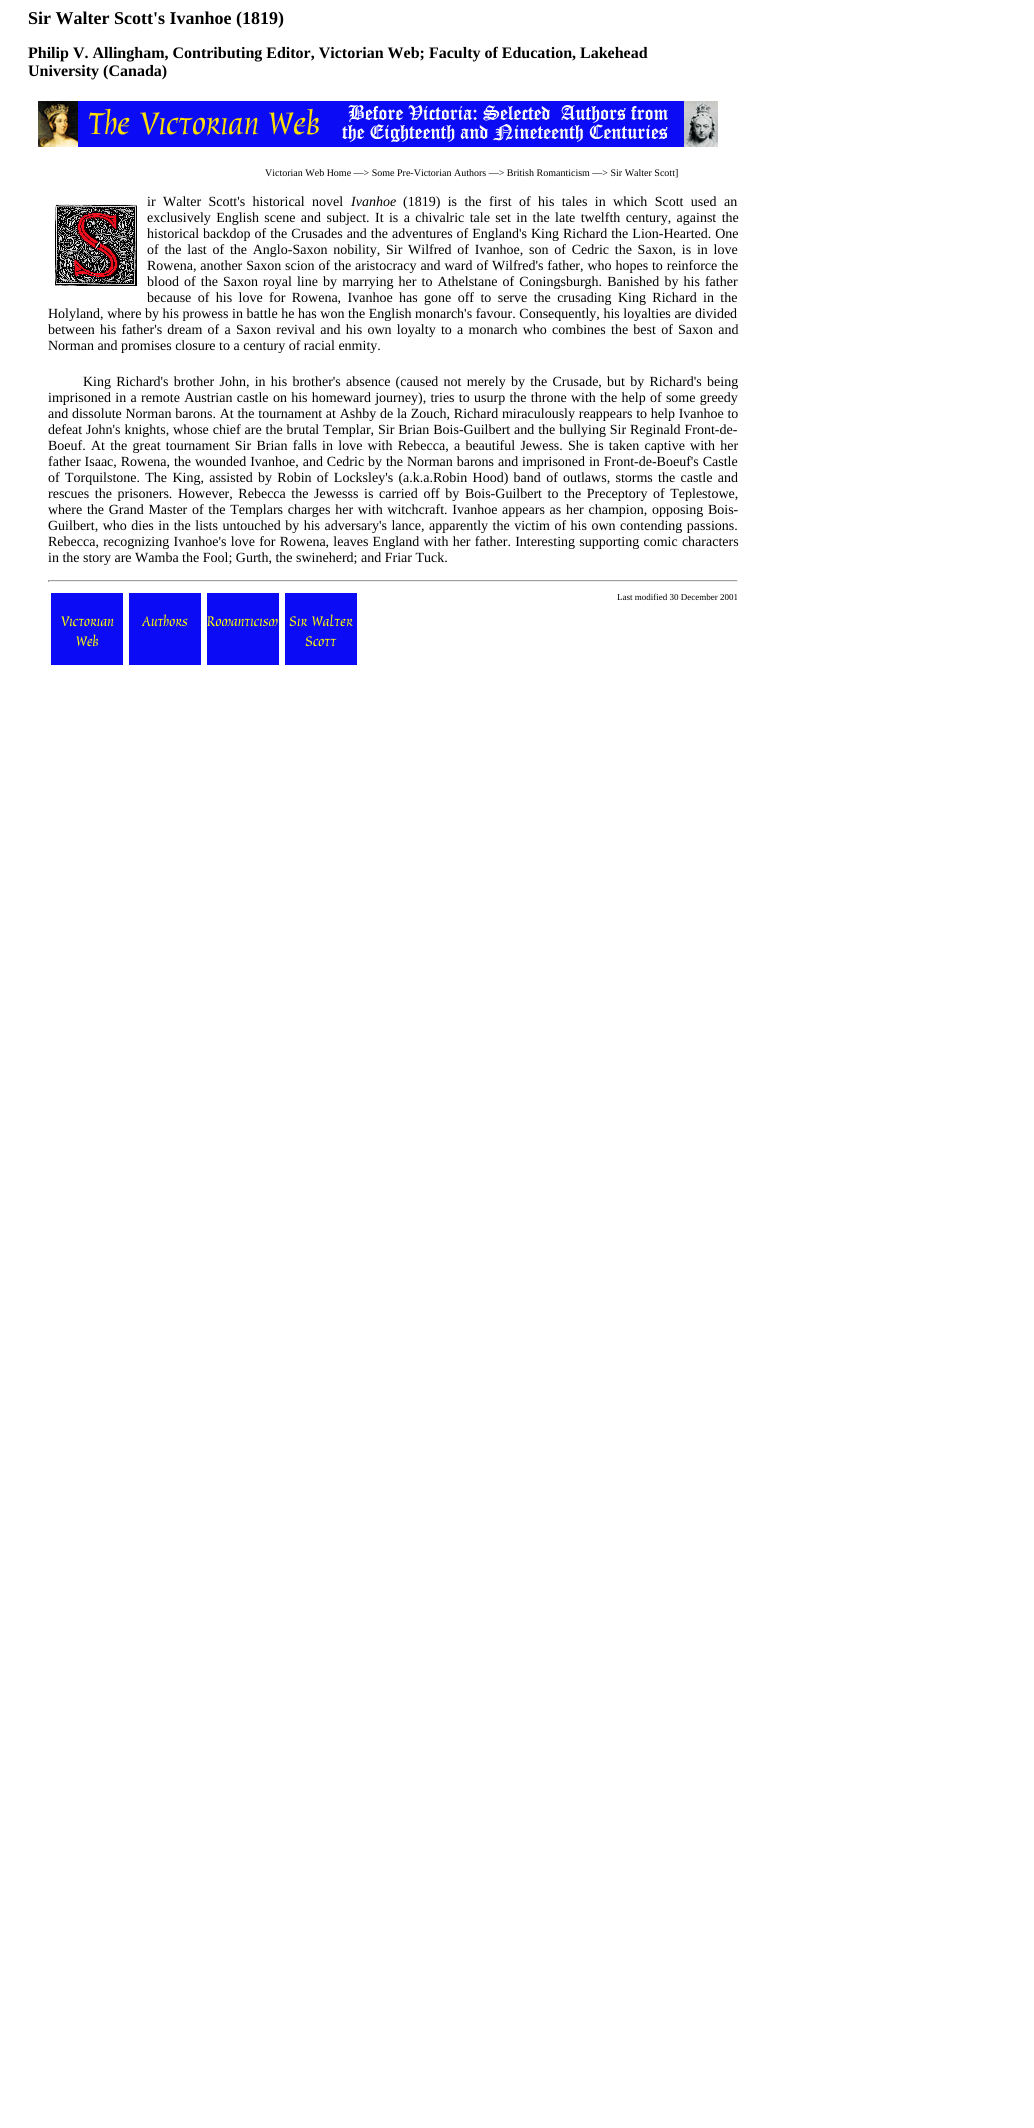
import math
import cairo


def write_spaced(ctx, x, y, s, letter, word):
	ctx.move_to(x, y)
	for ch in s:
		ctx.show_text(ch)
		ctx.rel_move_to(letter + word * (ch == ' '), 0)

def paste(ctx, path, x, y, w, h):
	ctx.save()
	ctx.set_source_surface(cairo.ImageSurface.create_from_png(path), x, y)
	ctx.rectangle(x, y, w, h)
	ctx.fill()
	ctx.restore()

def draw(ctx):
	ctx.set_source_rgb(1, 1, 1)
	ctx.paint()
	ctx.select_font_face('Liberation Serif', cairo.FONT_SLANT_NORMAL, cairo.FONT_WEIGHT_BOLD)
	ctx.set_font_size(18)
	ctx.set_source_rgb(0, 0, 0)
	ctx.move_to(28, 24)
	ctx.show_text('Sir Walter Scott\'s Ivanhoe (1819)')
	ctx.set_font_size(16)
	ctx.move_to(28, 58)
	ctx.show_text('Philip V. Allingham, Contributing Editor, Victorian Web; Faculty of Education, Lakehead')
	ctx.move_to(28, 76)
	ctx.show_text('University (Canada)')
	paste(ctx, 'media/1.png', 38, 101, 680, 46)
	ctx.select_font_face('Liberation Serif')
	ctx.set_font_size(10)
	ctx.move_to(265, 176)
	ctx.show_text('Victorian Web Home —> Some Pre-Victorian Authors —> British Romanticism —> Sir Walter Scott]')
	ctx.set_font_size(14)
	write_spaced(ctx, 147, 206, 'ir Walter Scott\'s historical novel', 0, 3.9)
	ctx.select_font_face('Liberation Serif', cairo.FONT_SLANT_ITALIC)
	ctx.move_to(351, 206)
	ctx.show_text('Ivanhoe')
	ctx.select_font_face('Liberation Serif')
	write_spaced(ctx, 403, 206, '(1819) is the first of his tales in which Scott used an', 0, 3.9)
	paste(ctx, 'media/2.png', 55, 204, 82, 82)
	write_spaced(ctx, 147, 222, 'exclusively English scene and subject. It is a chivalric tale set in the late twelfth century, against the', 0, 1.9)
	write_spaced(ctx, 147, 238, 'historical backdop of the Crusades and the adventures of England\'s King Richard the Lion-Hearted. One', 0, 0.5)
	write_spaced(ctx, 147, 254, 'of the last of the Anglo-Saxon nobility, Sir Wilfred of Ivanhoe, son of Cedric the Saxon, is in love', 0, 2.25)
	write_spaced(ctx, 147, 270, 'Rowena, another Saxon scion of the aristocracy and ward of Wilfred\'s father, who hopes to reinforce the', 0, 0.4)
	write_spaced(ctx, 147, 286, 'blood of the Saxon royal line by marrying her to Athelstane of Coningsburgh. Banished by his father', 0, 1.6)
	write_spaced(ctx, 147, 302, 'because of his love for Rowena, Ivanhoe has gone off to serve the crusading King Richard in the', 0, 2.9)
	write_spaced(ctx, 48, 318, 'Holyland, where by his prowess in battle he has won the English monarch\'s favour. Consequently, his loyalties are divided', 0, 0.1)
	write_spaced(ctx, 48, 334, 'between his father\'s dream of a Saxon revival and his own loyalty to a monarch who combines the best of Saxon and', 0, 1.75)
	ctx.move_to(48, 350)
	ctx.show_text('Norman and promises closure to a century of racial enmity.')
	write_spaced(ctx, 83, 386, 'King Richard\'s brother John, in his brother\'s absence (caused not merely by the Crusade, but by Richard\'s being', 0, 1.75)
	write_spaced(ctx, 48, 402, 'imprisoned in a remote Austrian castle on his homeward journey), tries to usurp the throne with the help of some greedy', 0, 0.8)
	write_spaced(ctx, 48, 418, 'and dissolute Norman barons. At the tournament at Ashby de la Zouch, Richard miraculously reappears to help Ivanhoe to', 0, 0.25)
	write_spaced(ctx, 48, 434, 'defeat John\'s knights, whose chief are the brutal Templar, Sir Brian Bois-Guilbert and the bullying Sir Reginald Front-de-', 0, 0.4)
	write_spaced(ctx, 48, 450, 'Boeuf. At the great tournament Sir Brian falls in love with Rebecca, a beautiful Jewess. She is taken captive with her', 0, 1.75)
	write_spaced(ctx, 48, 466, 'father Isaac, Rowena, the wounded Ivanhoe, and Cedric by the Norman barons and imprisoned in Front-de-Boeuf\'s Castle', 0, 0.4)
	write_spaced(ctx, 48, 482, 'of Torquilstone. The King, assisted by Robin of Locksley\'s (a.k.a.Robin Hood) band of outlaws, storms the castle and', 0, 1.8)
	write_spaced(ctx, 48, 498, 'rescues the prisoners. However, Rebecca the Jewesss is carried off by Bois-Guilbert to the Preceptory of Teplestowe,', 0, 2.1)
	write_spaced(ctx, 48, 514, 'where the Grand Master of the Templars charges her with witchcraft. Ivanhoe appears as her champion, opposing Bois-', 0, 1.2)
	write_spaced(ctx, 48, 530, 'Guilbert, who dies in the lists untouched by his adversary\'s lance, apparently the victim of his own contending passions.', 0, 1)
	write_spaced(ctx, 48, 546, 'Rebecca, recognizing Ivanhoe\'s love for Rowena, leaves England with her father. Interesting supporting comic characters', 0, 0.75)
	ctx.move_to(48, 562)
	ctx.show_text('in the story are Wamba the Fool; Gurth, the swineherd; and Friar Tuck.')
	ctx.set_source_rgb(0.624, 0.624, 0.624)
	ctx.rectangle(48, 580, 690, 1)
	ctx.fill()
	ctx.set_source_rgb(0.933, 0.933, 0.933)
	ctx.rectangle(737, 580, 1, 2)
	ctx.rectangle(48, 581, 690, 1)
	ctx.fill()
	ctx.set_source_rgb(0.624, 0.624, 0.624)
	ctx.rectangle(48, 580, 1, 2)
	ctx.fill()
	ctx.set_font_size(9)
	ctx.set_source_rgb(0, 0, 0)
	ctx.move_to(617, 600)
	ctx.show_text('Last modified 30 December 2001')
	ctx.set_source_rgb(0.043, 0.043, 0.961)
	ctx.rectangle(51, 593, 72, 72)
	ctx.fill()
	ctx.select_font_face('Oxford')
	ctx.set_font_size(16)
	ctx.set_source_rgb(1, 1, 0)
	ctx.move_to(61, 626)
	ctx.show_text('Victorian')
	ctx.move_to(76, 646)
	ctx.show_text('Web')
	ctx.set_source_rgb(0.043, 0.043, 0.961)
	ctx.rectangle(129, 593, 72, 72)
	ctx.fill()
	ctx.set_source_rgb(1, 1, 0)
	ctx.move_to(142, 626)
	ctx.show_text('Authors')
	ctx.set_source_rgb(0.043, 0.043, 0.961)
	ctx.rectangle(207, 593, 72, 72)
	ctx.fill()
	ctx.set_source_rgb(1, 1, 0)
	ctx.move_to(207, 626)
	ctx.show_text('Romanticism')
	ctx.set_source_rgb(0.043, 0.043, 0.961)
	ctx.rectangle(285, 593, 72, 72)
	ctx.fill()
	ctx.set_source_rgb(1, 1, 0)
	ctx.move_to(289, 626)
	ctx.show_text('Sir Walter')
	ctx.move_to(305, 646)
	ctx.show_text('Scott')


surface = cairo.ImageSurface(cairo.FORMAT_RGB24, 1034, 2128)
ctx = cairo.Context(surface)
options = cairo.FontOptions()
options.set_hint_metrics(cairo.HINT_METRICS_OFF)
options.set_hint_style(cairo.HINT_STYLE_NONE)
ctx.set_font_options(options)
ctx.set_miter_limit(4)
draw(ctx)
surface.write_to_png('image.png')
